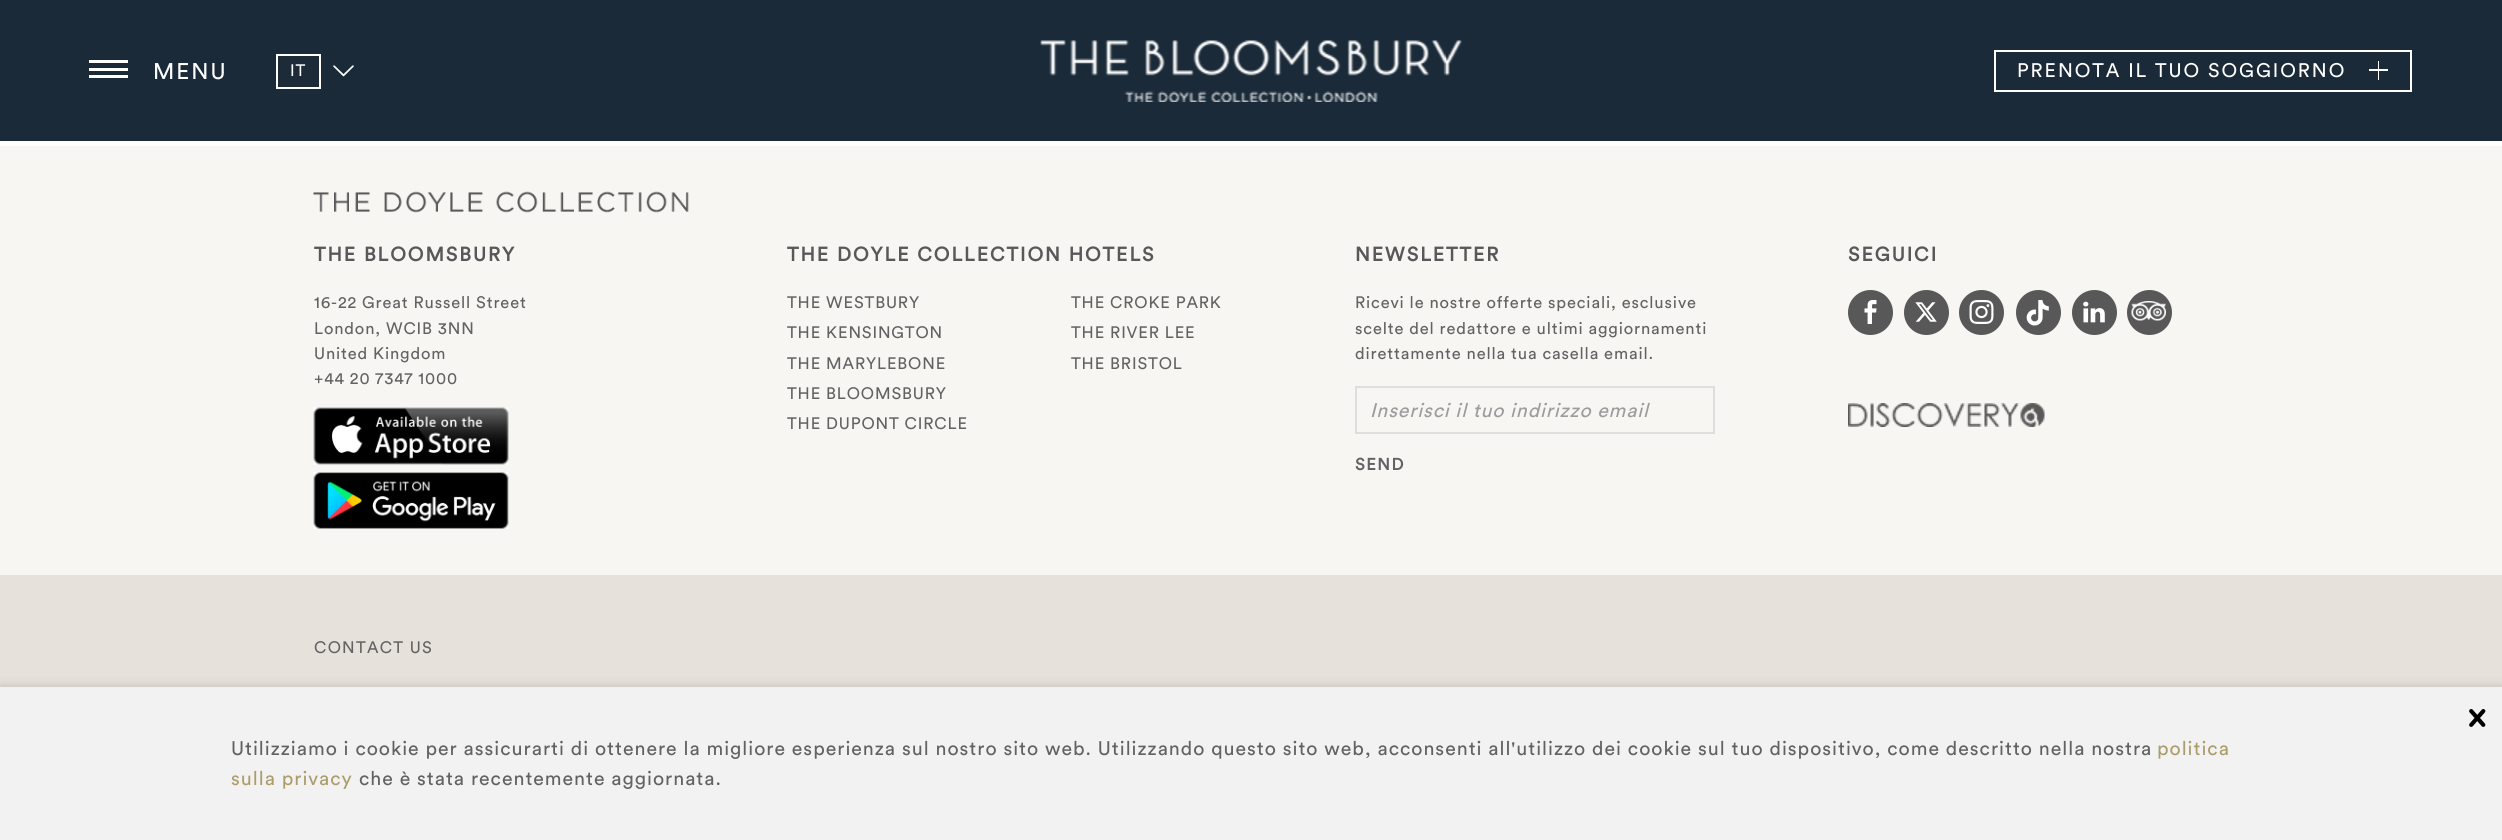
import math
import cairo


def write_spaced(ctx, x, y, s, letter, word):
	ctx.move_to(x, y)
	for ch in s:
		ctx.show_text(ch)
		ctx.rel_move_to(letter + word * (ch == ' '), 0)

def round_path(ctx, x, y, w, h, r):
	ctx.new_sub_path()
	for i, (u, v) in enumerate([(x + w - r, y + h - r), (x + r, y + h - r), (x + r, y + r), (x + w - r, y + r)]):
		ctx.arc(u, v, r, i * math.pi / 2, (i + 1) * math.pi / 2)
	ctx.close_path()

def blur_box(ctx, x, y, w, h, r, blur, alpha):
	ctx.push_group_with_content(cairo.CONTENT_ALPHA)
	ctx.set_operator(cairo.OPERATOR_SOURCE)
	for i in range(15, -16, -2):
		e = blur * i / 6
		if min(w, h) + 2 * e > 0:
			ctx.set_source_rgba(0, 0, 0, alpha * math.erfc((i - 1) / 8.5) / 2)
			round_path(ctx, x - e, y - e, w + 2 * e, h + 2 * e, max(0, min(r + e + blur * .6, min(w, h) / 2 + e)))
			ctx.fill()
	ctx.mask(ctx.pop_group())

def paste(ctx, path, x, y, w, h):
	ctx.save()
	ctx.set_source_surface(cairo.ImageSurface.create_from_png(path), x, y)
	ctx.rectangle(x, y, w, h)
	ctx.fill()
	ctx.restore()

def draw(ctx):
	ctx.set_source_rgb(1, 1, 1)
	ctx.paint()
	ctx.set_source_rgb(0.102, 0.165, 0.22)
	ctx.rectangle(0, 0, 2502, 141)
	ctx.fill()
	ctx.set_source_rgb(1, 1, 1)
	ctx.rectangle(89, 60, 39, 3)
	ctx.rectangle(89, 68, 39, 3)
	ctx.rectangle(89, 75, 39, 3)
	ctx.fill()
	ctx.select_font_face('Circular')
	ctx.set_font_size(22.5)
	write_spaced(ctx, 153, 79, 'MENU', 1.95, 0)
	ctx.set_source_rgb(0.114, 0.165, 0.216)
	ctx.rectangle(277, 55, 43, 33)
	ctx.fill_preserve()
	ctx.set_source_rgb(1, 1, 1)
	ctx.stroke()
	ctx.set_font_size(16.5)
	write_spaced(ctx, 290, 76, 'IT', 0.98, 0)
	paste(ctx, 'media/1.png', 333, 65, 21, 12)
	paste(ctx, 'media/2.png', 1040, 40, 422, 62)
	ctx.rectangle(1995, 51, 416, 40)
	ctx.stroke()
	ctx.set_font_size(19.5)
	write_spaced(ctx, 2017, 77, 'PRENOTA IL TUO SOGGIORNO', 1.95, 0)
	ctx.rectangle(2369, 69, 19, 2)
	ctx.rectangle(2378, 61, 1, 19)
	ctx.fill()
	ctx.set_source_rgb(0.965, 0.961, 0.953)
	ctx.rectangle(0, 146, 2502, 429)
	ctx.fill()
	paste(ctx, 'media/3.png', 313, 191, 376, 22)
	ctx.select_font_face('Circular', cairo.FONT_SLANT_NORMAL, cairo.FONT_WEIGHT_BOLD)
	ctx.set_source_rgb(0.345, 0.345, 0.345)
	write_spaced(ctx, 314, 261, 'THE BLOOMSBURY', 1.95, 0)
	ctx.select_font_face('Circular')
	ctx.set_font_size(16.5)
	ctx.set_source_rgb(0.384, 0.384, 0.384)
	for x, y, s in [
		(314, 308, '16-22 Great Russell Street'),
		(314, 334, 'London, WCIB 3NN'),
		(314, 359, 'United Kingdom'),
		(314, 384, '+44 20 7347 1000'),
	]:
		write_spaced(ctx, x, y, s, 0.85, 0)
	paste(ctx, 'media/4.png', 313, 407, 196, 58)
	paste(ctx, 'media/5.png', 313, 472, 196, 57)
	ctx.select_font_face('Circular', cairo.FONT_SLANT_NORMAL, cairo.FONT_WEIGHT_BOLD)
	ctx.set_font_size(19.5)
	ctx.set_source_rgb(0.345, 0.345, 0.345)
	write_spaced(ctx, 787, 261, 'THE DOYLE COLLECTION HOTELS', 1.95, 0)
	ctx.select_font_face('Circular')
	ctx.set_font_size(16.5)
	ctx.set_source_rgb(0.384, 0.384, 0.384)
	for x, y, s in [
		(787, 308, 'THE WESTBURY'),
		(787, 338, 'THE KENSINGTON'),
		(787, 369, 'THE MARYLEBONE'),
		(787, 399, 'THE BLOOMSBURY'),
		(787, 429, 'THE DUPONT CIRCLE'),
		(1071, 308, 'THE CROKE PARK'),
		(1071, 338, 'THE RIVER LEE'),
		(1071, 369, 'THE BRISTOL'),
	]:
		write_spaced(ctx, x, y, s, 0.85, 0)
	ctx.select_font_face('Circular', cairo.FONT_SLANT_NORMAL, cairo.FONT_WEIGHT_BOLD)
	ctx.set_font_size(19.5)
	ctx.set_source_rgb(0.345, 0.345, 0.345)
	write_spaced(ctx, 1355, 261, 'NEWSLETTER', 1.95, 0)
	ctx.select_font_face('Circular')
	ctx.set_font_size(16.5)
	ctx.set_source_rgb(0.384, 0.384, 0.384)
	for x, y, s in [
		(1355, 308, 'Ricevi le nostre offerte speciali, esclusive'),
		(1355, 334, 'scelte del redattore e ultimi aggiornamenti'),
		(1355, 359, 'direttamente nella tua casella email.'),
	]:
		write_spaced(ctx, x, y, s, 0.85, 0)
	ctx.rectangle(1356, 387, 358, 46)
	ctx.set_source_rgb(0.871, 0.871, 0.871)
	ctx.stroke()
	ctx.select_font_face('Circular', cairo.FONT_SLANT_ITALIC)
	ctx.set_font_size(19.5)
	ctx.set_source_rgb(0.612, 0.612, 0.612)
	write_spaced(ctx, 1370, 417, 'Inserisci il tuo indirizzo email', 0.85, 0)
	ctx.select_font_face('Circular', cairo.FONT_SLANT_NORMAL, cairo.FONT_WEIGHT_BOLD)
	ctx.set_font_size(16.5)
	ctx.set_source_rgb(0.384, 0.384, 0.384)
	write_spaced(ctx, 1355, 470, 'SEND', 1.5, 0)
	ctx.set_font_size(19.5)
	ctx.set_source_rgb(0.345, 0.345, 0.345)
	write_spaced(ctx, 1848, 261, 'SEGUICI', 1.95, 0)
	ctx.new_path()
	ctx.arc(1870.5, 312.5, 22.5, 0, 2 * math.pi)
	ctx.fill()
	paste(ctx, 'media/6.png', 1864, 300, 13, 24)
	ctx.arc(1926.5, 312.5, 22.5, 0, 2 * math.pi)
	ctx.fill()
	paste(ctx, 'media/7.png', 1915, 302, 22, 20)
	ctx.arc(1981.5, 312.5, 22.5, 0, 2 * math.pi)
	ctx.fill()
	paste(ctx, 'media/8.png', 1969, 300, 25, 24)
	ctx.arc(2038.5, 312.5, 22.5, 0, 2 * math.pi)
	ctx.fill()
	paste(ctx, 'media/9.png', 2026, 300, 23, 26)
	ctx.arc(2094.5, 312.5, 22.5, 0, 2 * math.pi)
	ctx.fill()
	paste(ctx, 'media/10.png', 2083, 301, 22, 22)
	ctx.arc(2149.5, 312.5, 22.5, 0, 2 * math.pi)
	ctx.fill()
	paste(ctx, 'media/11.png', 2131, 301, 35, 20)
	paste(ctx, 'media/12.png', 1848, 403, 197, 24)
	ctx.set_source_rgb(0.902, 0.886, 0.859)
	ctx.rectangle(0, 575, 2502, 112)
	ctx.fill()
	ctx.select_font_face('Circular')
	ctx.set_font_size(16.5)
	ctx.set_source_rgb(0.384, 0.384, 0.384)
	write_spaced(ctx, 314, 653, 'CONTACT US', 1.25, 0)
	ctx.set_source_rgb(0, 0, 0)
	blur_box(ctx, 0, 687, 2502, 153, 0, 5, 0.18)
	ctx.set_source_rgb(0.949, 0.949, 0.949)
	ctx.rectangle(0, 687, 2502, 153)
	ctx.fill()
	paste(ctx, 'media/13.png', 2469, 709, 17, 18)
	ctx.set_font_size(19.5)
	ctx.set_source_rgb(0.384, 0.384, 0.384)
	write_spaced(ctx, 231, 755, 'Utilizziamo i cookie per assicurarti di ottenere la migliore esperienza sul nostro sito web. Utilizzando questo sito web, acconsenti all\'utilizzo dei cookie sul tuo dispositivo, come descritto nella nostra', 0.98, 0)
	ctx.set_source_rgb(0.678, 0.616, 0.42)
	write_spaced(ctx, 2157, 755, 'politica', 0.98, 0)
	write_spaced(ctx, 231, 785, 'sulla privacy', 0.98, 0)
	ctx.set_source_rgb(0.384, 0.384, 0.384)
	write_spaced(ctx, 359, 785, 'che è stata recentemente aggiornata.', 0.98, 0)


surface = cairo.ImageSurface(cairo.FORMAT_RGB24, 2502, 840)
ctx = cairo.Context(surface)
options = cairo.FontOptions()
options.set_hint_metrics(cairo.HINT_METRICS_OFF)
options.set_hint_style(cairo.HINT_STYLE_NONE)
ctx.set_font_options(options)
ctx.set_miter_limit(4)
draw(ctx)
surface.write_to_png('image.png')
